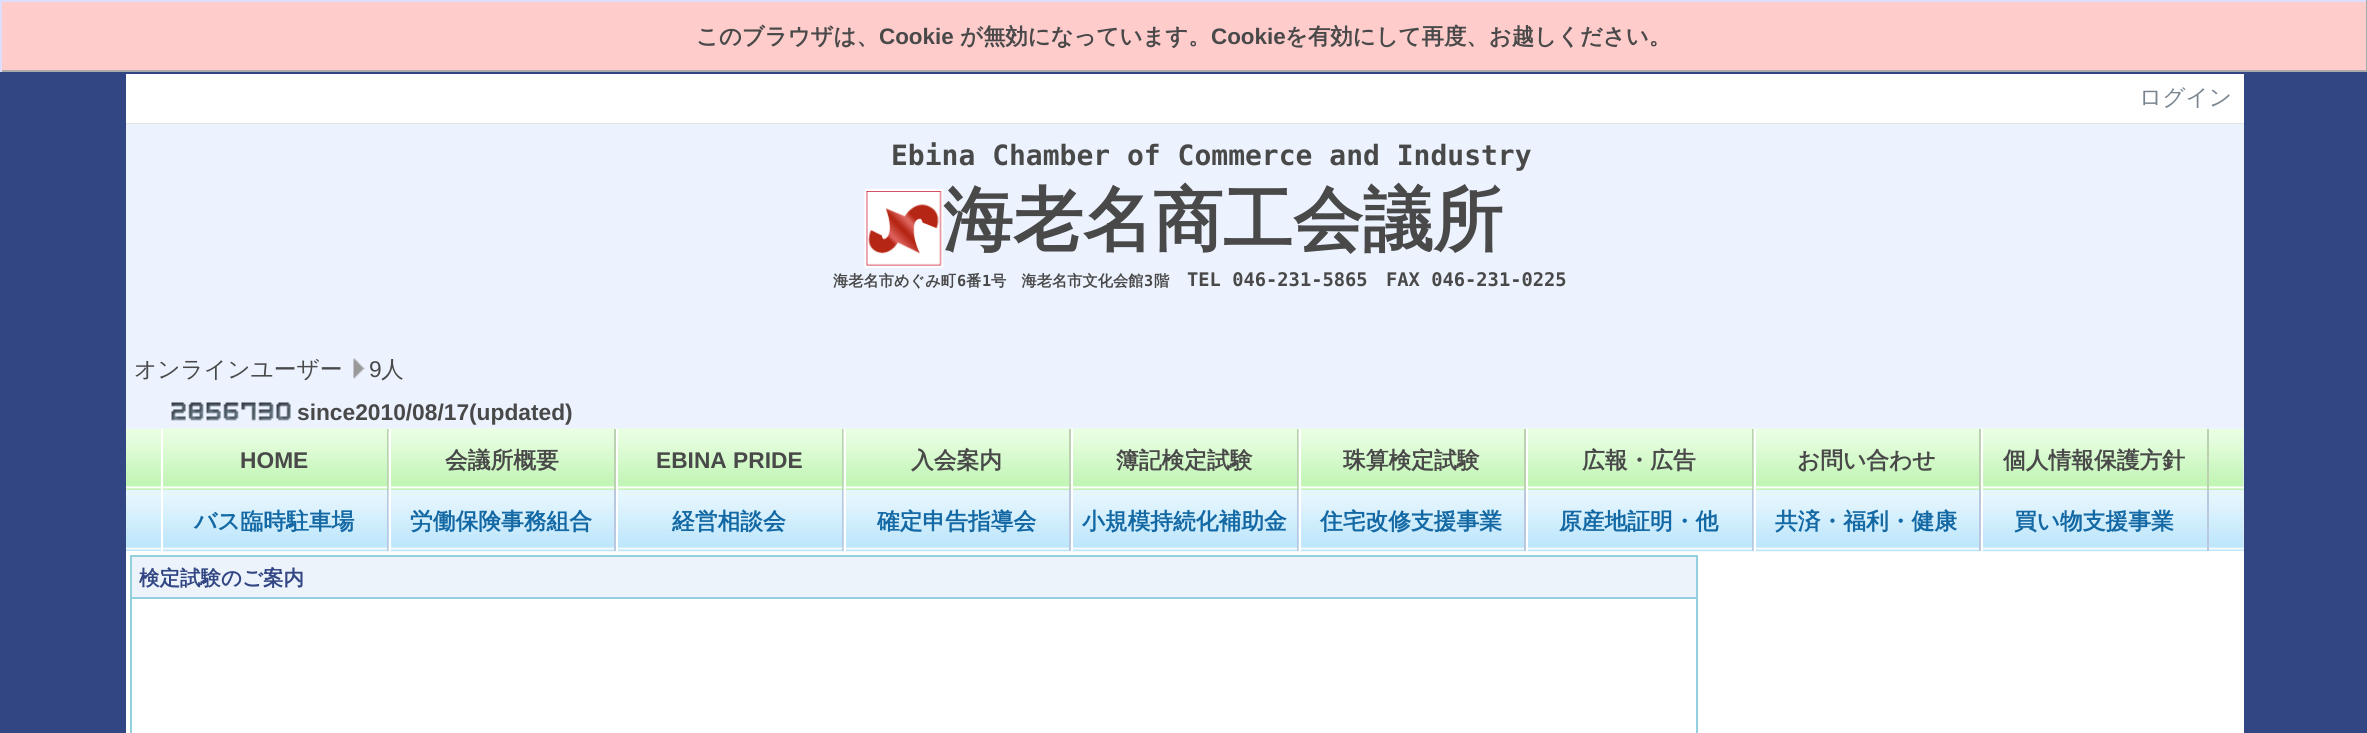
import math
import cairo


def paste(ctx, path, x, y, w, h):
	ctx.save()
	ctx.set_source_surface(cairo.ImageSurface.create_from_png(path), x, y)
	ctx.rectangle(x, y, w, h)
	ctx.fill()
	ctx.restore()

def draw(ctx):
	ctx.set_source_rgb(0.196, 0.275, 0.518)
	ctx.paint()
	ctx.set_source_rgb(1, 0.8, 0.8)
	ctx.rectangle(2, 2, 2364, 68)
	ctx.fill()
	ctx.set_source_rgb(0.867, 0.867, 1)
	ctx.rectangle(0, 0, 2367, 2)
	ctx.fill()
	ctx.set_source_rgb(0.667, 0.667, 0.667)
	ctx.rectangle(2366, 0, 1, 72)
	ctx.rectangle(0, 70, 2367, 2)
	ctx.fill()
	ctx.set_source_rgb(0.867, 0.867, 1)
	ctx.rectangle(0, 0, 2, 72)
	ctx.fill()
	ctx.select_font_face('WenQuanYi Zen Hei', cairo.FONT_SLANT_NORMAL, cairo.FONT_WEIGHT_BOLD)
	ctx.set_font_size(22.4)
	ctx.set_source_rgb(0.286, 0.286, 0.286)
	ctx.move_to(696, 44)
	ctx.show_text('このブラウザは、')
	ctx.select_font_face('Liberation Sans', cairo.FONT_SLANT_NORMAL, cairo.FONT_WEIGHT_BOLD)
	ctx.move_to(879, 44)
	ctx.show_text('Cookie')
	ctx.select_font_face('WenQuanYi Zen Hei', cairo.FONT_SLANT_NORMAL, cairo.FONT_WEIGHT_BOLD)
	ctx.move_to(960, 44)
	ctx.show_text('が無効になっています。')
	ctx.select_font_face('Liberation Sans', cairo.FONT_SLANT_NORMAL, cairo.FONT_WEIGHT_BOLD)
	ctx.move_to(1211, 44)
	ctx.show_text('Cookie')
	ctx.select_font_face('WenQuanYi Zen Hei', cairo.FONT_SLANT_NORMAL, cairo.FONT_WEIGHT_BOLD)
	ctx.move_to(1285, 44)
	ctx.show_text('を有効にして再度、お越しください。')
	ctx.set_source_rgb(1, 1, 1)
	ctx.rectangle(126, 74, 2118, 49)
	ctx.fill()
	ctx.set_source_rgb(0.875, 0.894, 0.906)
	ctx.rectangle(126, 123, 2118, 1)
	ctx.fill()
	ctx.select_font_face('WenQuanYi Zen Hei Medium')
	ctx.set_font_size(22.75)
	ctx.set_source_rgb(0.478, 0.522, 0.561)
	ctx.move_to(2139, 105)
	ctx.show_text('ログイン')
	ctx.set_source_rgb(0.922, 0.953, 1)
	ctx.rectangle(126, 124, 2118, 427)
	ctx.fill()
	ctx.select_font_face('DejaVu Sans Mono', cairo.FONT_SLANT_NORMAL, cairo.FONT_WEIGHT_BOLD)
	ctx.set_font_size(28)
	ctx.set_source_rgb(0.286, 0.286, 0.286)
	ctx.move_to(891, 165)
	ctx.show_text('Ebina Chamber of Commerce and Industry')
	paste(ctx, 'media/1.png', 864, 189, 80, 79)
	ctx.select_font_face('WenQuanYi Zen Hei', cairo.FONT_SLANT_NORMAL, cairo.FONT_WEIGHT_BOLD)
	ctx.set_font_size(70)
	ctx.move_to(943, 244)
	ctx.show_text('海老名商工会議所')
	ctx.set_font_size(15.25)
	ctx.move_to(833, 286)
	ctx.show_text('海老名市めぐみ町')
	ctx.select_font_face('DejaVu Sans Mono', cairo.FONT_SLANT_NORMAL, cairo.FONT_WEIGHT_BOLD)
	ctx.move_to(957, 286)
	ctx.show_text('6')
	ctx.select_font_face('WenQuanYi Zen Hei', cairo.FONT_SLANT_NORMAL, cairo.FONT_WEIGHT_BOLD)
	ctx.move_to(966, 286)
	ctx.show_text('番')
	ctx.select_font_face('DejaVu Sans Mono', cairo.FONT_SLANT_NORMAL, cairo.FONT_WEIGHT_BOLD)
	ctx.move_to(982, 286)
	ctx.show_text('1')
	ctx.select_font_face('WenQuanYi Zen Hei', cairo.FONT_SLANT_NORMAL, cairo.FONT_WEIGHT_BOLD)
	ctx.move_to(991, 286)
	ctx.show_text('号　海老名市文化会館')
	ctx.select_font_face('DejaVu Sans Mono', cairo.FONT_SLANT_NORMAL, cairo.FONT_WEIGHT_BOLD)
	ctx.move_to(1144, 286)
	ctx.show_text('3')
	ctx.select_font_face('WenQuanYi Zen Hei', cairo.FONT_SLANT_NORMAL, cairo.FONT_WEIGHT_BOLD)
	ctx.move_to(1154, 286)
	ctx.show_text('階')
	ctx.select_font_face('DejaVu Sans Mono', cairo.FONT_SLANT_NORMAL, cairo.FONT_WEIGHT_BOLD)
	ctx.set_font_size(18.75)
	ctx.move_to(1187, 286)
	ctx.show_text('TEL 046-231-5865')
	ctx.move_to(1386, 286)
	ctx.show_text('FAX 046-231-0225')
	paste(ctx, 'media/2.png', 353, 358, 12, 21)
	ctx.select_font_face('WenQuanYi Zen Hei Medium')
	ctx.set_font_size(22.75)
	ctx.move_to(134, 377)
	ctx.show_text('オンラインユーザー')
	ctx.select_font_face('Liberation Sans')
	ctx.move_to(369, 377)
	ctx.show_text('9')
	ctx.select_font_face('WenQuanYi Zen Hei Medium')
	ctx.move_to(381, 377)
	ctx.show_text('人')
	paste(ctx, 'media/3.png', 171, 402, 15, 19)
	paste(ctx, 'media/4.png', 188, 402, 16, 19)
	paste(ctx, 'media/5.png', 206, 402, 15, 19)
	paste(ctx, 'media/6.png', 223, 402, 16, 19)
	paste(ctx, 'media/7.png', 241, 402, 15, 19)
	paste(ctx, 'media/8.png', 258, 402, 16, 19)
	paste(ctx, 'media/9.png', 276, 402, 15, 19)
	ctx.select_font_face('Liberation Sans', cairo.FONT_SLANT_NORMAL, cairo.FONT_WEIGHT_BOLD)
	ctx.move_to(297, 420)
	ctx.show_text('since2010/08/17(updated)')
	paste(ctx, 'media/10.png', 126, 428, 2118, 62)
	ctx.set_source_rgb(0.922, 0.973, 0.953)
	ctx.rectangle(161, 428, 227, 1)
	ctx.fill()
	ctx.set_source_rgb(0.733, 0.82, 0.698)
	ctx.rectangle(387, 429, 2, 61)
	ctx.fill()
	paste(ctx, 'media/12.png', 126, 491, 2118, 60)
	ctx.set_source_rgb(1, 1, 1)
	ctx.rectangle(161, 429, 2, 122)
	ctx.fill()
	ctx.set_source_rgb(0.286, 0.286, 0.286)
	ctx.move_to(240, 468)
	ctx.show_text('HOME')
	paste(ctx, 'media/11.png', 388, 428, 228, 62)
	ctx.set_source_rgb(0.733, 0.82, 0.698)
	ctx.rectangle(614, 429, 2, 61)
	ctx.fill()
	ctx.set_source_rgb(1, 1, 1)
	ctx.rectangle(389, 429, 2, 61)
	ctx.fill()
	ctx.select_font_face('WenQuanYi Zen Hei', cairo.FONT_SLANT_NORMAL, cairo.FONT_WEIGHT_BOLD)
	ctx.set_source_rgb(0.286, 0.286, 0.286)
	ctx.move_to(445, 468)
	ctx.show_text('会議所概要')
	ctx.set_source_rgb(0.922, 0.973, 0.953)
	ctx.rectangle(616, 428, 227, 1)
	ctx.fill()
	ctx.set_source_rgb(0.733, 0.82, 0.698)
	ctx.rectangle(842, 429, 2, 61)
	ctx.fill()
	ctx.set_source_rgb(1, 1, 1)
	ctx.rectangle(616, 429, 2, 122)
	ctx.fill()
	ctx.select_font_face('Liberation Sans', cairo.FONT_SLANT_NORMAL, cairo.FONT_WEIGHT_BOLD)
	ctx.set_source_rgb(0.286, 0.286, 0.286)
	ctx.move_to(656, 468)
	ctx.show_text('EBINA PRIDE')
	paste(ctx, 'media/11.png', 843, 428, 228, 62)
	ctx.set_source_rgb(0.733, 0.82, 0.698)
	ctx.rectangle(1069, 429, 2, 61)
	ctx.fill()
	ctx.set_source_rgb(1, 1, 1)
	ctx.rectangle(844, 429, 2, 61)
	ctx.fill()
	ctx.select_font_face('WenQuanYi Zen Hei', cairo.FONT_SLANT_NORMAL, cairo.FONT_WEIGHT_BOLD)
	ctx.set_source_rgb(0.286, 0.286, 0.286)
	ctx.move_to(911, 468)
	ctx.show_text('入会案内')
	ctx.set_source_rgb(0.922, 0.973, 0.953)
	ctx.rectangle(1071, 428, 227, 1)
	ctx.fill()
	ctx.set_source_rgb(0.733, 0.82, 0.698)
	ctx.rectangle(1297, 429, 2, 61)
	ctx.fill()
	ctx.set_source_rgb(1, 1, 1)
	ctx.rectangle(1071, 429, 2, 122)
	ctx.fill()
	ctx.set_source_rgb(0.286, 0.286, 0.286)
	ctx.move_to(1116, 468)
	ctx.show_text('簿記検定試験')
	paste(ctx, 'media/11.png', 1298, 428, 228, 62)
	ctx.set_source_rgb(0.733, 0.82, 0.698)
	ctx.rectangle(1524, 429, 2, 61)
	ctx.fill()
	ctx.set_source_rgb(1, 1, 1)
	ctx.rectangle(1299, 429, 2, 61)
	ctx.fill()
	ctx.set_source_rgb(0.286, 0.286, 0.286)
	ctx.move_to(1343, 468)
	ctx.show_text('珠算検定試験')
	ctx.set_source_rgb(0.922, 0.973, 0.953)
	ctx.rectangle(1526, 428, 227, 1)
	ctx.fill()
	ctx.set_source_rgb(0.733, 0.82, 0.698)
	ctx.rectangle(1752, 429, 2, 61)
	ctx.fill()
	ctx.set_source_rgb(1, 1, 1)
	ctx.rectangle(1526, 429, 2, 122)
	ctx.fill()
	ctx.set_source_rgb(0.286, 0.286, 0.286)
	ctx.move_to(1582, 468)
	ctx.show_text('広報・広告')
	paste(ctx, 'media/11.png', 1753, 428, 228, 62)
	ctx.set_source_rgb(0.733, 0.82, 0.698)
	ctx.rectangle(1979, 429, 2, 61)
	ctx.fill()
	ctx.set_source_rgb(1, 1, 1)
	ctx.rectangle(1754, 429, 2, 61)
	ctx.fill()
	ctx.set_source_rgb(0.286, 0.286, 0.286)
	ctx.move_to(1797, 468)
	ctx.show_text('お問い合わせ')
	ctx.set_source_rgb(0.922, 0.973, 0.953)
	ctx.rectangle(1981, 428, 227, 1)
	ctx.fill()
	ctx.set_source_rgb(0.733, 0.82, 0.698)
	ctx.rectangle(2207, 429, 2, 61)
	ctx.fill()
	ctx.set_source_rgb(1, 1, 1)
	ctx.rectangle(1981, 429, 2, 122)
	ctx.fill()
	ctx.set_source_rgb(0.286, 0.286, 0.286)
	ctx.move_to(2003, 468)
	ctx.show_text('個人情報保護方針')
	ctx.set_source_rgb(1, 1, 1)
	ctx.rectangle(126, 551, 2118, 182)
	ctx.fill()
	paste(ctx, 'media/13.png', 161, 551, 228, 1)
	ctx.set_source_rgb(0.725, 0.784, 0.875)
	ctx.rectangle(387, 490, 2, 61)
	ctx.fill()
	ctx.set_source_rgb(0.082, 0.412, 0.643)
	ctx.move_to(194, 529)
	ctx.show_text('バス臨時駐車場')
	paste(ctx, 'media/14.png', 388, 490, 228, 62)
	ctx.set_source_rgb(0.725, 0.784, 0.875)
	ctx.rectangle(614, 490, 2, 61)
	ctx.fill()
	ctx.set_source_rgb(1, 1, 1)
	ctx.rectangle(389, 490, 2, 61)
	ctx.fill()
	ctx.set_source_rgb(0.082, 0.412, 0.643)
	ctx.move_to(410, 529)
	ctx.show_text('労働保険事務組合')
	paste(ctx, 'media/13.png', 616, 551, 228, 1)
	ctx.set_source_rgb(0.725, 0.784, 0.875)
	ctx.rectangle(842, 490, 2, 61)
	ctx.fill()
	ctx.set_source_rgb(0.082, 0.412, 0.643)
	ctx.move_to(672, 529)
	ctx.show_text('経営相談会')
	paste(ctx, 'media/14.png', 843, 490, 228, 62)
	ctx.set_source_rgb(0.725, 0.784, 0.875)
	ctx.rectangle(1069, 490, 2, 61)
	ctx.fill()
	ctx.set_source_rgb(1, 1, 1)
	ctx.rectangle(844, 490, 2, 61)
	ctx.fill()
	ctx.set_source_rgb(0.082, 0.412, 0.643)
	ctx.move_to(877, 529)
	ctx.show_text('確定申告指導会')
	paste(ctx, 'media/13.png', 1071, 551, 228, 1)
	ctx.set_source_rgb(0.725, 0.784, 0.875)
	ctx.rectangle(1297, 490, 2, 61)
	ctx.fill()
	ctx.set_source_rgb(0.082, 0.412, 0.643)
	ctx.move_to(1082, 529)
	ctx.show_text('小規模持続化補助金')
	paste(ctx, 'media/14.png', 1298, 490, 228, 62)
	ctx.set_source_rgb(0.725, 0.784, 0.875)
	ctx.rectangle(1524, 490, 2, 61)
	ctx.fill()
	ctx.set_source_rgb(1, 1, 1)
	ctx.rectangle(1299, 490, 2, 61)
	ctx.fill()
	ctx.set_source_rgb(0.082, 0.412, 0.643)
	ctx.move_to(1320, 529)
	ctx.show_text('住宅改修支援事業')
	paste(ctx, 'media/13.png', 1526, 551, 228, 1)
	ctx.set_source_rgb(0.725, 0.784, 0.875)
	ctx.rectangle(1752, 490, 2, 61)
	ctx.fill()
	ctx.set_source_rgb(0.082, 0.412, 0.643)
	ctx.move_to(1559, 529)
	ctx.show_text('原産地証明・他')
	paste(ctx, 'media/14.png', 1753, 490, 228, 62)
	ctx.set_source_rgb(0.725, 0.784, 0.875)
	ctx.rectangle(1979, 490, 2, 61)
	ctx.fill()
	ctx.set_source_rgb(1, 1, 1)
	ctx.rectangle(1754, 490, 2, 61)
	ctx.fill()
	ctx.set_source_rgb(0.082, 0.412, 0.643)
	ctx.move_to(1775, 529)
	ctx.show_text('共済・福利・健康')
	paste(ctx, 'media/13.png', 1981, 551, 228, 1)
	ctx.set_source_rgb(0.725, 0.784, 0.875)
	ctx.rectangle(2207, 490, 2, 61)
	ctx.fill()
	ctx.set_source_rgb(0.082, 0.412, 0.643)
	ctx.move_to(2014, 529)
	ctx.show_text('買い物支援事業')
	ctx.set_source_rgb(0.573, 0.816, 0.867)
	ctx.rectangle(130, 555, 1568, 2)
	ctx.rectangle(1696, 555, 2, 178)
	ctx.rectangle(130, 555, 2, 178)
	ctx.fill()
	ctx.set_source_rgb(0.922, 0.953, 0.984)
	ctx.rectangle(132, 557, 1564, 40)
	ctx.fill()
	ctx.set_source_rgb(0.573, 0.816, 0.867)
	ctx.rectangle(130, 597, 1568, 2)
	ctx.fill()
	ctx.set_font_size(20.5)
	ctx.set_source_rgb(0.196, 0.275, 0.518)
	ctx.move_to(139, 585)
	ctx.show_text('検定試験のご案内')


surface = cairo.ImageSurface(cairo.FORMAT_RGB24, 2367, 733)
ctx = cairo.Context(surface)
options = cairo.FontOptions()
options.set_hint_metrics(cairo.HINT_METRICS_OFF)
options.set_hint_style(cairo.HINT_STYLE_NONE)
ctx.set_font_options(options)
ctx.set_miter_limit(4)
draw(ctx)
surface.write_to_png('image.png')
